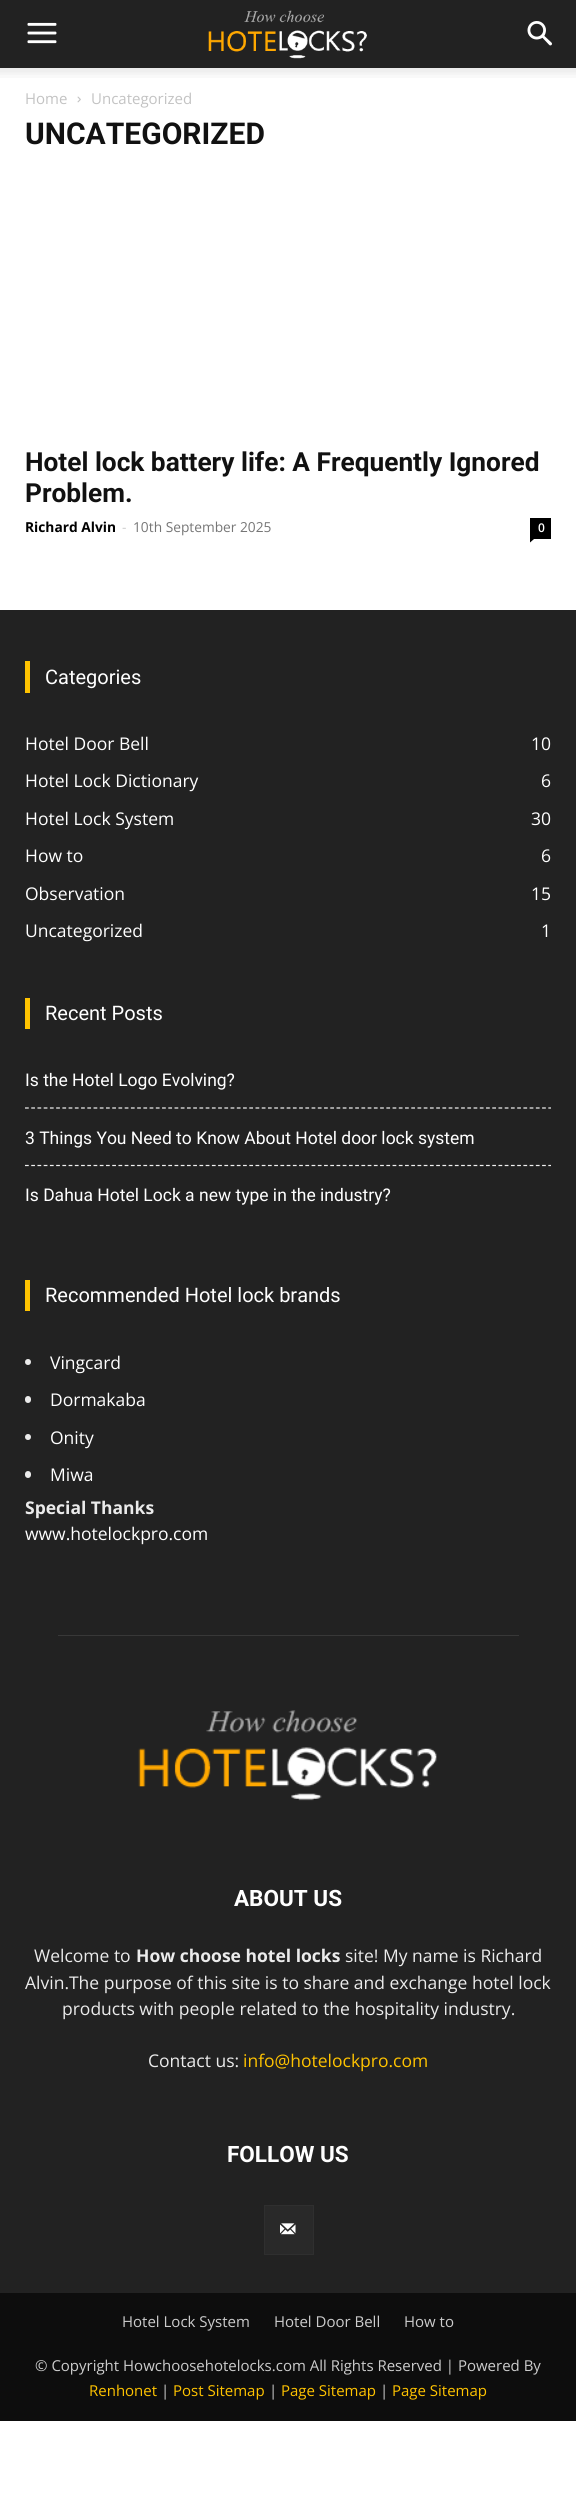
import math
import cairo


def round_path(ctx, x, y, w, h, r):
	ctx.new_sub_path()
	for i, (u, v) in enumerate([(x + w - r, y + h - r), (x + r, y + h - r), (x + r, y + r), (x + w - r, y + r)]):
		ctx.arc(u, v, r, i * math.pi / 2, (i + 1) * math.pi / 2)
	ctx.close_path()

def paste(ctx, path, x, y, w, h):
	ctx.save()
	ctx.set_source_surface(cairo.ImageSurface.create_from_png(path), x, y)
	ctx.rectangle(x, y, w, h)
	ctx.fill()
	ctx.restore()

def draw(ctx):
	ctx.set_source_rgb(1, 1, 1)
	ctx.paint()
	ctx.set_source_rgb(0.133, 0.133, 0.133)
	ctx.rectangle(0, 0, 576, 68)
	ctx.fill()
	paste(ctx, 'media/1.png', 27, 22, 30, 22)
	paste(ctx, 'media/2.png', 208, 10, 159, 49)
	paste(ctx, 'media/3.png', 527, 21, 25, 25)
	paste(ctx, 'media/4.png', 0, 68, 576, 10)
	ctx.select_font_face('Open Sans')
	ctx.set_font_size(15)
	ctx.set_source_rgb(0.765, 0.765, 0.765)
	ctx.move_to(25, 104)
	ctx.show_text('Home')
	paste(ctx, 'media/5.png', 77, 96, 4, 7)
	ctx.move_to(91, 104)
	ctx.show_text('Uncategorized')
	ctx.select_font_face('Roboto', cairo.FONT_SLANT_NORMAL, cairo.FONT_WEIGHT_BOLD)
	ctx.set_font_size(30)
	ctx.set_source_rgb(0.067, 0.067, 0.067)
	ctx.move_to(25, 144)
	ctx.show_text('UNCATEGORIZED')
	ctx.set_font_size(26.25)
	ctx.move_to(25, 471)
	ctx.show_text('Hotel lock battery life: A Frequently Ignored')
	ctx.move_to(25, 502)
	ctx.show_text('Problem.')
	ctx.select_font_face('Open Sans', cairo.FONT_SLANT_NORMAL, cairo.FONT_WEIGHT_BOLD)
	ctx.set_font_size(13.75)
	ctx.set_source_rgb(0, 0, 0)
	ctx.move_to(25, 532)
	ctx.show_text('Richard Alvin')
	ctx.select_font_face('Open Sans')
	ctx.set_source_rgb(0.8, 0.8, 0.8)
	ctx.move_to(122, 532)
	ctx.show_text('-')
	ctx.set_source_rgb(0.463, 0.463, 0.463)
	ctx.move_to(133, 532)
	ctx.show_text('10th September 2025')
	ctx.set_source_rgb(0, 0, 0)
	ctx.rectangle(530, 518, 21, 21)
	ctx.fill()
	ctx.select_font_face('Open Sans SemiBold')
	ctx.set_font_size(12)
	ctx.set_source_rgb(1, 1, 1)
	ctx.move_to(538, 532)
	ctx.show_text('0')
	ctx.set_source_rgb(0, 0, 0)
	ctx.new_path()
	ctx.move_to(530, 539)
	ctx.line_to(534, 539)
	ctx.line_to(530, 542.5)
	ctx.close_path()
	ctx.fill()
	ctx.set_source_rgb(0.133, 0.133, 0.133)
	ctx.rectangle(0, 610, 576, 1683)
	ctx.fill()
	ctx.set_source_rgb(1, 0.765, 0)
	ctx.rectangle(25, 661, 5, 32)
	ctx.fill()
	ctx.select_font_face('Roboto')
	ctx.set_font_size(20)
	ctx.set_source_rgb(1, 1, 1)
	ctx.move_to(45, 684)
	ctx.show_text('Categories')
	ctx.select_font_face('Open Sans')
	ctx.set_font_size(17.5)
	for x, y, s in [
		(25, 750, 'Hotel Door Bell'),
		(531, 750, '10'),
		(25, 787, 'Hotel Lock Dictionary'),
		(541, 787, '6'),
		(25, 825, 'Hotel Lock System'),
		(531, 825, '30'),
		(25, 862, 'How to'),
		(541, 862, '6'),
		(25, 900, 'Observation'),
		(531, 900, '15'),
		(25, 937, 'Uncategorized'),
		(541, 937, '1'),
	]:
		ctx.move_to(x, y)
		ctx.show_text(s)
	ctx.set_source_rgb(1, 0.765, 0)
	ctx.rectangle(25, 998, 5, 31)
	ctx.fill()
	ctx.select_font_face('Roboto')
	ctx.set_font_size(20)
	ctx.set_source_rgb(1, 1, 1)
	ctx.move_to(45, 1020)
	ctx.show_text('Recent Posts')
	ctx.new_path()
	ctx.move_to(25, 1108)
	ctx.line_to(551, 1108)
	ctx.set_source_rgb(0.945, 0.945, 0.945)
	ctx.set_line_width(1.2)
	ctx.set_dash([3.75, 2.48])
	ctx.stroke()
	ctx.set_font_size(17.5)
	ctx.set_source_rgb(1, 1, 1)
	ctx.move_to(25, 1086)
	ctx.show_text('Is the Hotel Logo Evolving?')
	ctx.new_path()
	ctx.move_to(25, 1165.5)
	ctx.line_to(551, 1165.5)
	ctx.set_source_rgb(0.945, 0.945, 0.945)
	ctx.stroke()
	ctx.set_source_rgb(1, 1, 1)
	ctx.move_to(25, 1144)
	ctx.show_text('3 Things You Need to Know About Hotel door lock system')
	ctx.move_to(25, 1201)
	ctx.show_text('Is Dahua Hotel Lock a new type in the industry?')
	ctx.set_source_rgb(1, 0.765, 0)
	ctx.rectangle(25, 1280, 5, 31)
	ctx.fill()
	ctx.set_font_size(20)
	ctx.set_source_rgb(1, 1, 1)
	ctx.move_to(45, 1302)
	ctx.show_text('Recommended Hotel lock brands')
	ctx.set_source_rgb(0.918, 0.918, 0.918)
	ctx.new_path()
	ctx.arc(28, 1362, 3, 0, 2 * math.pi)
	ctx.fill()
	ctx.select_font_face('Open Sans')
	ctx.set_font_size(17.5)
	ctx.set_source_rgb(1, 1, 1)
	ctx.move_to(50, 1369)
	ctx.show_text('Vingcard')
	ctx.set_source_rgb(0.918, 0.918, 0.918)
	round_path(ctx, 25, 1396, 6, 7, 3)
	ctx.fill()
	ctx.set_source_rgb(1, 1, 1)
	ctx.move_to(50, 1406)
	ctx.show_text('Dormakaba')
	ctx.set_source_rgb(0.918, 0.918, 0.918)
	ctx.new_path()
	ctx.arc(28, 1437, 3, 0, 2 * math.pi)
	ctx.fill()
	ctx.set_source_rgb(1, 1, 1)
	ctx.move_to(50, 1444)
	ctx.show_text('Onity')
	ctx.set_source_rgb(0.918, 0.918, 0.918)
	round_path(ctx, 25, 1471, 6, 7, 3)
	ctx.fill()
	ctx.set_source_rgb(1, 1, 1)
	ctx.move_to(50, 1481)
	ctx.show_text('Miwa')
	ctx.select_font_face('Open Sans', cairo.FONT_SLANT_NORMAL, cairo.FONT_WEIGHT_BOLD)
	ctx.set_source_rgb(0.918, 0.918, 0.918)
	ctx.move_to(25, 1514)
	ctx.show_text('Special Thanks')
	ctx.select_font_face('Open Sans')
	ctx.set_source_rgb(1, 1, 1)
	ctx.move_to(25, 1540)
	ctx.show_text('www.hotelockpro.com')
	ctx.set_source_rgb(0.22, 0.22, 0.22)
	ctx.rectangle(58, 1635, 461, 1)
	ctx.fill()
	paste(ctx, 'media/6.png', 138, 1710, 299, 91)
	ctx.select_font_face('Roboto', cairo.FONT_SLANT_NORMAL, cairo.FONT_WEIGHT_BOLD)
	ctx.set_font_size(22.5)
	ctx.set_source_rgb(1, 1, 1)
	ctx.move_to(234, 1906)
	ctx.show_text('ABOUT US')
	ctx.select_font_face('Open Sans')
	ctx.set_font_size(17.5)
	ctx.set_source_rgb(0.918, 0.918, 0.918)
	ctx.move_to(34, 1962)
	ctx.show_text('Welcome to')
	ctx.select_font_face('Open Sans', cairo.FONT_SLANT_NORMAL, cairo.FONT_WEIGHT_BOLD)
	ctx.move_to(136, 1962)
	ctx.show_text('How choose hotel locks')
	ctx.select_font_face('Open Sans')
	for x, y, s in [
		(345, 1962, 'site! My name is Richard'),
		(25, 1989, 'Alvin.The purpose of this site is to share and exchange hotel lock'),
		(62, 2015, 'products with people related to the hospitality industry.'),
		(148, 2067, 'Contact us:'),
	]:
		ctx.move_to(x, y)
		ctx.show_text(s)
	ctx.set_source_rgb(1, 0.765, 0)
	ctx.move_to(243, 2067)
	ctx.show_text('info@hotelockpro.com')
	ctx.select_font_face('Roboto', cairo.FONT_SLANT_NORMAL, cairo.FONT_WEIGHT_BOLD)
	ctx.set_font_size(22.5)
	ctx.set_source_rgb(1, 1, 1)
	ctx.move_to(227, 2162)
	ctx.show_text('FOLLOW US')
	ctx.set_source_rgb(0.161, 0.161, 0.161)
	ctx.rectangle(265, 2206, 48, 48)
	ctx.fill()
	paste(ctx, 'media/7.png', 280, 2223, 16, 12)
	ctx.rectangle(264.5, 2205.5, 49, 49)
	ctx.set_source_rgb(0.184, 0.184, 0.184)
	ctx.set_line_width(1)
	ctx.set_dash([])
	ctx.stroke()
	ctx.set_source_rgb(0.051, 0.051, 0.051)
	ctx.rectangle(0, 2293, 576, 128)
	ctx.fill()
	ctx.select_font_face('Open Sans')
	ctx.set_font_size(15)
	ctx.set_source_rgb(0.8, 0.8, 0.8)
	for x, y, s in [
		(122, 2327, 'Hotel Lock System'),
		(274, 2327, 'Hotel Door Bell'),
		(404, 2327, 'How to'),
		(35, 2371, '© Copyright Howchoosehotelocks.com All Rights Reserved | Powered By'),
	]:
		ctx.move_to(x, y)
		ctx.show_text(s)
	ctx.set_source_rgb(1, 0.765, 0)
	ctx.move_to(89, 2396)
	ctx.show_text('Renhonet')
	ctx.set_source_rgb(0.8, 0.8, 0.8)
	ctx.move_to(161, 2396)
	ctx.show_text('|')
	ctx.set_source_rgb(1, 0.765, 0)
	ctx.move_to(173, 2396)
	ctx.show_text('Post Sitemap')
	ctx.set_source_rgb(0.8, 0.8, 0.8)
	ctx.move_to(269, 2396)
	ctx.show_text('|')
	ctx.set_source_rgb(1, 0.765, 0)
	ctx.move_to(281, 2396)
	ctx.show_text('Page Sitemap')
	ctx.set_source_rgb(0.8, 0.8, 0.8)
	ctx.move_to(380, 2396)
	ctx.show_text('|')
	ctx.set_source_rgb(1, 0.765, 0)
	ctx.move_to(392, 2396)
	ctx.show_text('Page Sitemap')


surface = cairo.ImageSurface(cairo.FORMAT_RGB24, 576, 2505)
ctx = cairo.Context(surface)
options = cairo.FontOptions()
options.set_hint_metrics(cairo.HINT_METRICS_OFF)
options.set_hint_style(cairo.HINT_STYLE_NONE)
ctx.set_font_options(options)
ctx.set_miter_limit(4)
draw(ctx)
surface.write_to_png('image.png')
